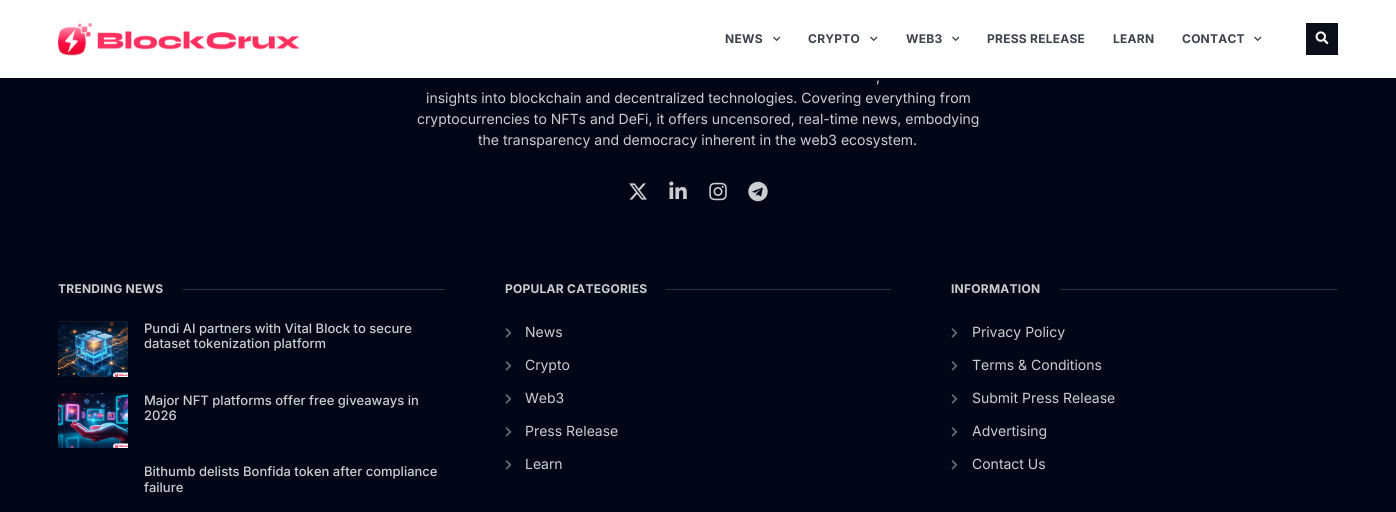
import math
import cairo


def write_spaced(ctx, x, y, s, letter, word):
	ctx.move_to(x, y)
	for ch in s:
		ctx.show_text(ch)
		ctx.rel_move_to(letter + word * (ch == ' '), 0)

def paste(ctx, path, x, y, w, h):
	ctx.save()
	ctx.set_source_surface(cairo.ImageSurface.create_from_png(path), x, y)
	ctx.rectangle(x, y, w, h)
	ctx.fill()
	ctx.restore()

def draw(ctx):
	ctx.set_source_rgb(0.008, 0.031, 0.09)
	ctx.paint()
	ctx.set_source_rgb(1, 1, 1)
	ctx.rectangle(0, 0, 1396, 78)
	ctx.fill()
	paste(ctx, 'media/1.png', 58, 23, 242, 33)
	ctx.select_font_face('Inter', cairo.FONT_SLANT_NORMAL, cairo.FONT_WEIGHT_BOLD)
	ctx.set_font_size(12)
	ctx.set_source_rgb(0.235, 0.255, 0.298)
	write_spaced(ctx, 725, 43, 'NEWS', 0.25, 0)
	paste(ctx, 'media/2.png', 773, 36, 8, 5)
	write_spaced(ctx, 808, 43, 'CRYPTO', 0.25, 0)
	paste(ctx, 'media/2.png', 870, 36, 8, 5)
	write_spaced(ctx, 906, 43, 'WEB3', 0.25, 0)
	paste(ctx, 'media/2.png', 952, 36, 8, 5)
	for x, y, s in [
		(987, 43, 'PRESS RELEASE'),
		(1113, 43, 'LEARN'),
		(1182, 43, 'CONTACT'),
	]:
		write_spaced(ctx, x, y, s, 0.25, 0)
	paste(ctx, 'media/2.png', 1254, 36, 8, 5)
	ctx.set_source_rgb(0.043, 0.059, 0.098)
	ctx.rectangle(1306, 23, 32, 32)
	ctx.fill()
	paste(ctx, 'media/3.png', 1315, 31, 14, 14)
	ctx.select_font_face('Inter')
	ctx.set_font_size(14)
	ctx.set_source_rgb(0.8, 0.808, 0.82)
	for x, y, s in [
		(876, 82, ','),
		(426, 103, 'insights into blockchain and decentralized technologies. Covering everything from'),
		(417, 124, 'cryptocurrencies to NFTs and DeFi, it offers uncensored, real-time news, embodying'),
		(478, 145, 'the transparency and democracy inherent in the web3 ecosystem.'),
	]:
		ctx.move_to(x, y)
		ctx.show_text(s)
	paste(ctx, 'media/4.png', 629, 183, 18, 17)
	paste(ctx, 'media/5.png', 669, 181, 18, 18)
	paste(ctx, 'media/6.png', 709, 182, 18, 19)
	paste(ctx, 'media/7.png', 748, 181, 20, 21)
	ctx.select_font_face('Inter', cairo.FONT_SLANT_NORMAL, cairo.FONT_WEIGHT_BOLD)
	ctx.set_font_size(12)
	write_spaced(ctx, 58, 293, 'TRENDING NEWS', 0.25, 0)
	ctx.set_source_rgb(0.165, 0.188, 0.235)
	ctx.rectangle(183, 289, 262, 1)
	ctx.fill()
	paste(ctx, 'media/8.png', 58, 321, 70, 56)
	ctx.select_font_face('Inter Medium')
	ctx.set_font_size(13)
	ctx.set_source_rgb(0.8, 0.808, 0.82)
	ctx.move_to(144, 333)
	ctx.show_text('Pundi AI partners with Vital Block to secure')
	ctx.move_to(144, 348)
	ctx.show_text('dataset tokenization platform')
	paste(ctx, 'media/9.png', 58, 393, 70, 55)
	for x, y, s in [
		(144, 405, 'Major NFT platforms offer free giveaways in'),
		(144, 420, '2026'),
		(144, 476, 'Bithumb delists Bonfida token after compliance'),
		(144, 492, 'failure'),
	]:
		ctx.move_to(x, y)
		ctx.show_text(s)
	ctx.select_font_face('Inter', cairo.FONT_SLANT_NORMAL, cairo.FONT_WEIGHT_BOLD)
	ctx.set_font_size(12)
	write_spaced(ctx, 505, 293, 'POPULAR CATEGORIES', 0.25, 0)
	ctx.set_source_rgb(0.165, 0.188, 0.235)
	ctx.rectangle(666, 289, 225, 1)
	ctx.fill()
	paste(ctx, 'media/10.png', 505, 328, 7, 10)
	ctx.select_font_face('Inter')
	ctx.set_font_size(14)
	ctx.set_source_rgb(0.8, 0.808, 0.82)
	ctx.move_to(525, 337)
	ctx.show_text('News')
	paste(ctx, 'media/10.png', 505, 361, 7, 10)
	ctx.move_to(525, 370)
	ctx.show_text('Crypto')
	paste(ctx, 'media/10.png', 505, 394, 7, 10)
	ctx.move_to(525, 403)
	ctx.show_text('Web3')
	paste(ctx, 'media/10.png', 505, 427, 7, 10)
	ctx.move_to(525, 436)
	ctx.show_text('Press Release')
	paste(ctx, 'media/10.png', 505, 460, 7, 10)
	ctx.move_to(525, 469)
	ctx.show_text('Learn')
	ctx.select_font_face('Inter', cairo.FONT_SLANT_NORMAL, cairo.FONT_WEIGHT_BOLD)
	ctx.set_font_size(12)
	write_spaced(ctx, 951, 293, 'INFORMATION', 0.25, 0)
	ctx.set_source_rgb(0.165, 0.188, 0.235)
	ctx.rectangle(1060, 289, 278, 1)
	ctx.fill()
	paste(ctx, 'media/10.png', 951, 328, 7, 10)
	ctx.select_font_face('Inter')
	ctx.set_font_size(14)
	ctx.set_source_rgb(0.8, 0.808, 0.82)
	ctx.move_to(972, 337)
	ctx.show_text('Privacy Policy')
	paste(ctx, 'media/10.png', 951, 361, 7, 10)
	ctx.move_to(972, 370)
	ctx.show_text('Terms & Conditions')
	paste(ctx, 'media/10.png', 951, 394, 7, 10)
	ctx.move_to(972, 403)
	ctx.show_text('Submit Press Release')
	paste(ctx, 'media/10.png', 951, 427, 7, 10)
	ctx.move_to(972, 436)
	ctx.show_text('Advertising')
	paste(ctx, 'media/10.png', 951, 460, 7, 10)
	ctx.move_to(972, 469)
	ctx.show_text('Contact Us')


surface = cairo.ImageSurface(cairo.FORMAT_RGB24, 1396, 512)
ctx = cairo.Context(surface)
options = cairo.FontOptions()
options.set_hint_metrics(cairo.HINT_METRICS_OFF)
options.set_hint_style(cairo.HINT_STYLE_NONE)
ctx.set_font_options(options)
ctx.set_miter_limit(4)
draw(ctx)
surface.write_to_png('image.png')
